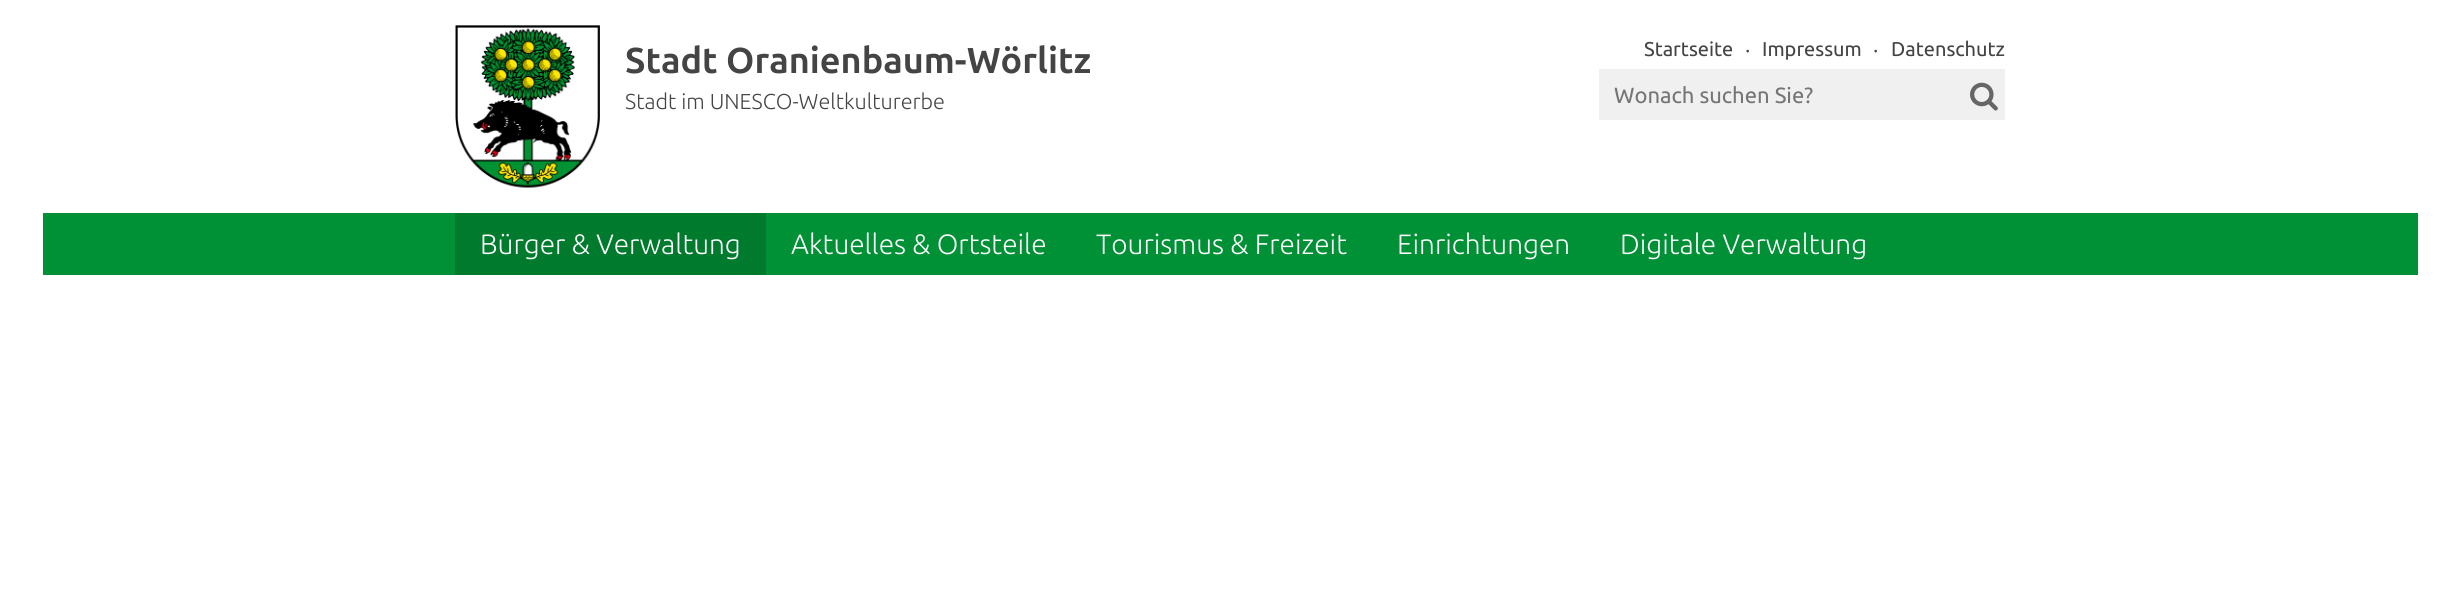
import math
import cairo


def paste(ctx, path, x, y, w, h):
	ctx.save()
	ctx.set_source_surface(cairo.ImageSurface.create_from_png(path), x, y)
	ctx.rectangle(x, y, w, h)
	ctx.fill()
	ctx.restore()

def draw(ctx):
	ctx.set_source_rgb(1, 1, 1)
	ctx.paint()
	paste(ctx, 'media/1.png', 455, 25, 145, 163)
	ctx.select_font_face('Ubuntu', cairo.FONT_SLANT_NORMAL, cairo.FONT_WEIGHT_BOLD)
	ctx.set_font_size(36)
	ctx.set_source_rgb(0.267, 0.267, 0.267)
	ctx.move_to(625, 73)
	ctx.show_text('Stadt Oranienbaum-Wörlitz')
	ctx.select_font_face('Ubuntu Light')
	ctx.set_font_size(21.6)
	ctx.move_to(625, 109)
	ctx.show_text('Stadt im UNESCO-Weltkulturerbe')
	ctx.select_font_face('Ubuntu')
	ctx.set_font_size(20)
	ctx.move_to(1644, 56)
	ctx.show_text('Startseite')
	ctx.select_font_face('Noto Sans')
	ctx.move_to(1745, 56)
	ctx.show_text('‧')
	ctx.select_font_face('Ubuntu')
	ctx.move_to(1762, 56)
	ctx.show_text('Impressum')
	ctx.select_font_face('Noto Sans')
	ctx.move_to(1873, 56)
	ctx.show_text('‧')
	ctx.select_font_face('Ubuntu')
	ctx.move_to(1891, 56)
	ctx.show_text('Datenschutz')
	ctx.set_source_rgb(0.941, 0.941, 0.941)
	ctx.rectangle(1599, 69, 406, 51)
	ctx.fill()
	ctx.set_font_size(22)
	ctx.set_source_rgb(0.459, 0.459, 0.459)
	ctx.move_to(1614, 103)
	ctx.show_text('Wonach suchen Sie?')
	paste(ctx, 'media/2.png', 1970, 82, 28, 29)
	ctx.set_source_rgb(0, 0.569, 0.212)
	ctx.rectangle(43, 213, 2375, 62)
	ctx.fill()
	ctx.set_source_rgb(0, 0.482, 0.18)
	ctx.rectangle(455, 213, 311, 62)
	ctx.fill()
	ctx.select_font_face('Ubuntu Light')
	ctx.set_font_size(28)
	ctx.set_source_rgb(1, 1, 1)
	for x, y, s in [
		(480, 254, 'Bürger & Verwaltung'),
		(791, 254, 'Aktuelles & Ortsteile'),
		(1096, 254, 'Tourismus & Freizeit'),
		(1397, 254, 'Einrichtungen'),
		(1620, 254, 'Digitale Verwaltung'),
	]:
		ctx.move_to(x, y)
		ctx.show_text(s)


surface = cairo.ImageSurface(cairo.FORMAT_RGB24, 2459, 607)
ctx = cairo.Context(surface)
options = cairo.FontOptions()
options.set_hint_metrics(cairo.HINT_METRICS_OFF)
options.set_hint_style(cairo.HINT_STYLE_NONE)
ctx.set_font_options(options)
ctx.set_miter_limit(4)
draw(ctx)
surface.write_to_png('image.png')
